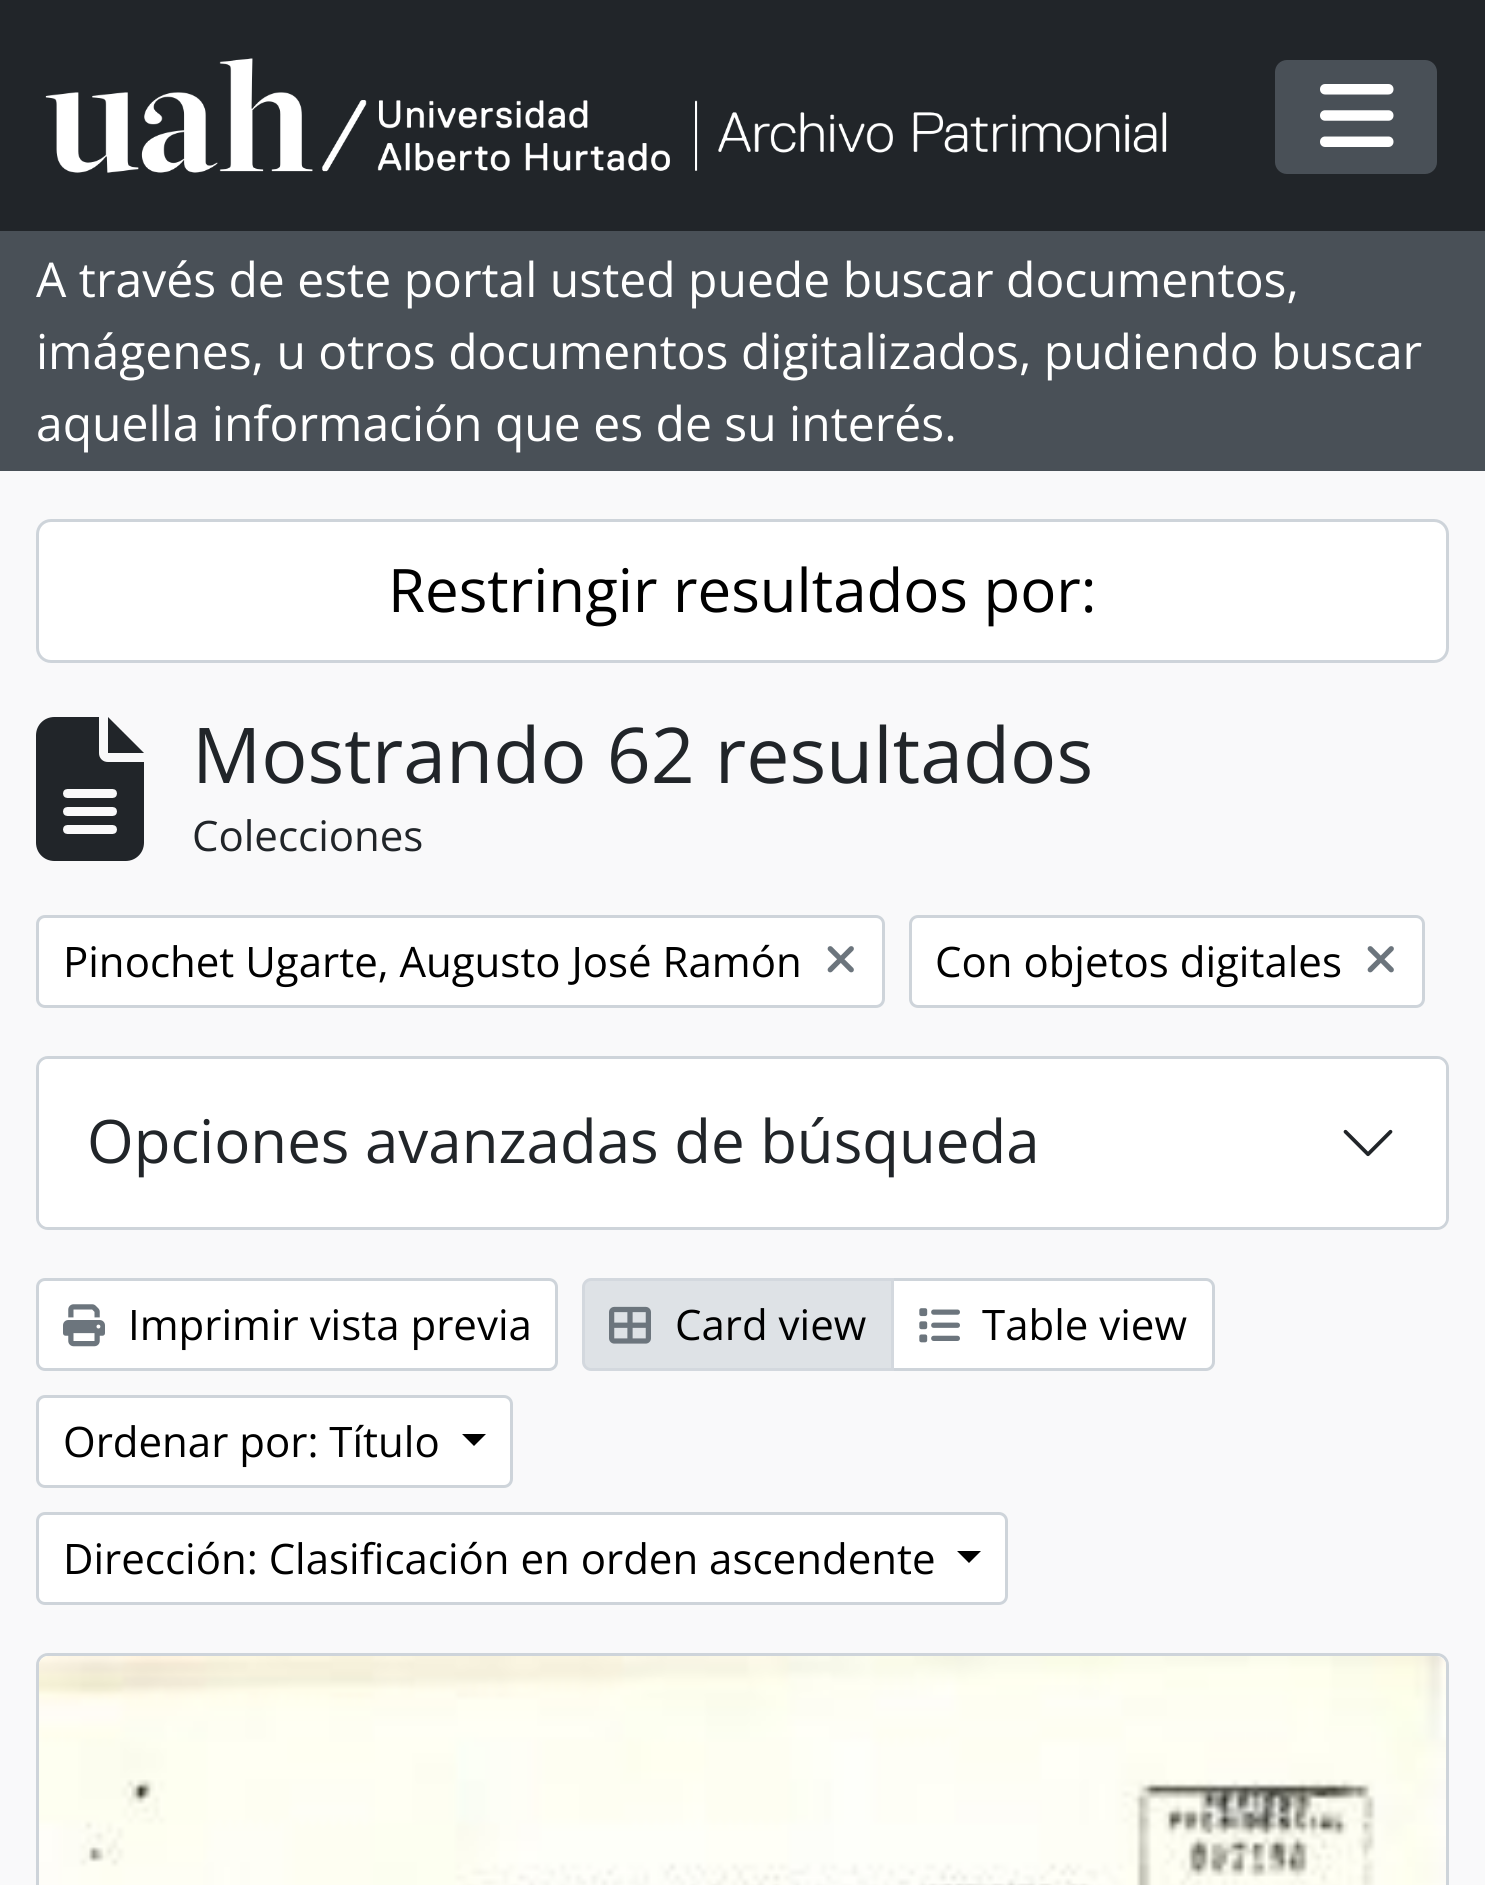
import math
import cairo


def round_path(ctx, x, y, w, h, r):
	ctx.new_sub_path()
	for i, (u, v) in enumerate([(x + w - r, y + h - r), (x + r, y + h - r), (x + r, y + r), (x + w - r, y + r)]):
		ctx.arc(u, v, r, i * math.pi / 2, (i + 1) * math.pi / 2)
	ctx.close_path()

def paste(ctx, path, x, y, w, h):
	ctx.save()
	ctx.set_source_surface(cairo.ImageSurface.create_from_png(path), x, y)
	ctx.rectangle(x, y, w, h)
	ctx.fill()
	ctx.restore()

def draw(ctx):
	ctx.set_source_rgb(0.973, 0.976, 0.98)
	ctx.paint()
	ctx.set_source_rgb(0.129, 0.145, 0.161)
	ctx.rectangle(0, 0, 1485, 231)
	ctx.fill()
	paste(ctx, 'media/1.png', 45, 58, 1122, 115)
	ctx.set_source_rgb(0.286, 0.314, 0.341)
	round_path(ctx, 1276.5, 61.5, 159, 111, 10.5)
	ctx.fill_preserve()
	ctx.set_line_width(3)
	ctx.stroke()
	paste(ctx, 'media/2.png', 1320, 84, 74, 63)
	ctx.rectangle(0, 231, 1485, 240)
	ctx.fill()
	ctx.select_font_face('Open Sans')
	ctx.set_font_size(48)
	ctx.set_source_rgb(1, 1, 1)
	for x, y, s in [
		(36, 297, 'A través de este portal usted puede buscar documentos,'),
		(36, 369, 'imágenes, u otros documentos digitalizados, pudiendo buscar'),
		(36, 441, 'aquella información que es de su interés.'),
	]:
		ctx.move_to(x, y)
		ctx.show_text(s)
	round_path(ctx, 37.5, 520.5, 1410, 141, 13.5)
	ctx.fill_preserve()
	ctx.set_source_rgb(0.808, 0.831, 0.855)
	ctx.stroke()
	ctx.set_font_size(60)
	ctx.set_source_rgb(0, 0, 0)
	ctx.move_to(388, 612)
	ctx.show_text('Restringir resultados por:')
	paste(ctx, 'media/3.png', 36, 717, 108, 144)
	ctx.set_font_size(77)
	ctx.set_source_rgb(0.129, 0.145, 0.161)
	ctx.move_to(192, 783)
	ctx.show_text('Mostrando 62 resultados')
	ctx.set_font_size(42)
	ctx.move_to(192, 851)
	ctx.show_text('Colecciones')
	ctx.set_source_rgb(1, 1, 1)
	round_path(ctx, 37.5, 916.5, 846, 90, 7.5)
	ctx.fill_preserve()
	ctx.set_source_rgb(0.808, 0.831, 0.855)
	ctx.stroke()
	ctx.set_source_rgb(0, 0, 0)
	ctx.move_to(63, 977)
	ctx.show_text('Pinochet Ugarte, Augusto José Ramón')
	paste(ctx, 'media/4.png', 827, 946, 27, 27)
	ctx.set_source_rgb(1, 1, 1)
	round_path(ctx, 910.5, 916.5, 513, 90, 7.5)
	ctx.fill_preserve()
	ctx.set_source_rgb(0.808, 0.831, 0.855)
	ctx.stroke()
	ctx.set_source_rgb(0, 0, 0)
	ctx.move_to(935, 977)
	ctx.show_text('Con objetos digitales')
	paste(ctx, 'media/4.png', 1367, 946, 27, 27)
	round_path(ctx, 37.5, 1057.5, 1410, 171, 10.5)
	ctx.set_source_rgb(0.808, 0.831, 0.855)
	ctx.stroke()
	ctx.set_source_rgb(1, 1, 1)
	round_path(ctx, 39, 1059, 1407, 168, 9)
	ctx.fill()
	ctx.set_font_size(60)
	ctx.set_source_rgb(0.129, 0.145, 0.161)
	ctx.move_to(87, 1163)
	ctx.show_text('Opciones avanzadas de búsqueda')
	paste(ctx, 'media/5.png', 1343, 1129, 50, 28)
	ctx.set_source_rgb(1, 1, 1)
	round_path(ctx, 37.5, 1279.5, 519, 90, 7.5)
	ctx.fill_preserve()
	ctx.set_source_rgb(0.808, 0.831, 0.855)
	ctx.stroke()
	paste(ctx, 'media/6.png', 63, 1304, 42, 43)
	ctx.set_font_size(42)
	ctx.set_source_rgb(0, 0, 0)
	ctx.move_to(128, 1340)
	ctx.show_text('Imprimir vista previa')
	ctx.set_source_rgb(1, 1, 1)
	ctx.new_path()
	ctx.move_to(892.5, 1279.5)
	ctx.line_to(1206, 1279.5)
	ctx.curve_to(1210, 1279.5, 1213.5, 1283, 1213.5, 1287)
	ctx.line_to(1213.5, 1362)
	ctx.curve_to(1213.5, 1366, 1210, 1369.5, 1206, 1369.5)
	ctx.line_to(892.5, 1369.5)
	ctx.close_path()
	ctx.fill_preserve()
	ctx.set_source_rgb(0.808, 0.831, 0.855)
	ctx.stroke()
	ctx.set_source_rgb(0.871, 0.886, 0.902)
	ctx.new_path()
	ctx.move_to(591, 1279.5)
	ctx.line_to(892.5, 1279.5)
	ctx.line_to(892.5, 1369.5)
	ctx.line_to(591, 1369.5)
	ctx.curve_to(587, 1369.5, 583.5, 1366, 583.5, 1362)
	ctx.line_to(583.5, 1287)
	ctx.curve_to(583.5, 1283, 587, 1279.5, 591, 1279.5)
	ctx.close_path()
	ctx.fill_preserve()
	ctx.set_source_rgb(0.827, 0.847, 0.871)
	ctx.stroke()
	paste(ctx, 'media/7.png', 609, 1306, 42, 38)
	ctx.set_source_rgb(0, 0, 0)
	ctx.move_to(675, 1340)
	ctx.show_text('Card view')
	paste(ctx, 'media/8.png', 919, 1308, 41, 35)
	ctx.move_to(982, 1340)
	ctx.show_text('Table view')
	ctx.set_source_rgb(1, 1, 1)
	round_path(ctx, 37.5, 1396.5, 474, 90, 7.5)
	ctx.fill_preserve()
	ctx.set_source_rgb(0.808, 0.831, 0.855)
	ctx.stroke()
	ctx.set_source_rgb(0, 0, 0)
	ctx.move_to(63, 1457)
	ctx.show_text('Ordenar por: Título')
	ctx.new_path()
	ctx.move_to(462, 1434)
	ctx.line_to(486, 1434)
	ctx.line_to(474, 1446)
	ctx.close_path()
	ctx.fill()
	ctx.set_source_rgb(1, 1, 1)
	round_path(ctx, 37.5, 1513.5, 969, 90, 7.5)
	ctx.fill_preserve()
	ctx.set_source_rgb(0.808, 0.831, 0.855)
	ctx.stroke()
	ctx.set_source_rgb(0, 0, 0)
	ctx.move_to(63, 1574)
	ctx.show_text('Dirección: Clasificación en orden ascendente')
	ctx.new_path()
	ctx.move_to(957, 1551)
	ctx.line_to(981, 1551)
	ctx.line_to(969, 1563)
	ctx.close_path()
	ctx.fill()
	ctx.set_source_rgb(1, 1, 1)
	round_path(ctx, 37.5, 1654.5, 1410, 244, 10.5)
	ctx.fill_preserve()
	ctx.set_source_rgb(0.808, 0.831, 0.855)
	ctx.stroke()
	paste(ctx, 'media/9.png', 39, 1656, 1407, 229)


surface = cairo.ImageSurface(cairo.FORMAT_RGB24, 1485, 1885)
ctx = cairo.Context(surface)
options = cairo.FontOptions()
options.set_hint_metrics(cairo.HINT_METRICS_OFF)
options.set_hint_style(cairo.HINT_STYLE_NONE)
ctx.set_font_options(options)
ctx.set_miter_limit(4)
draw(ctx)
surface.write_to_png('image.png')
